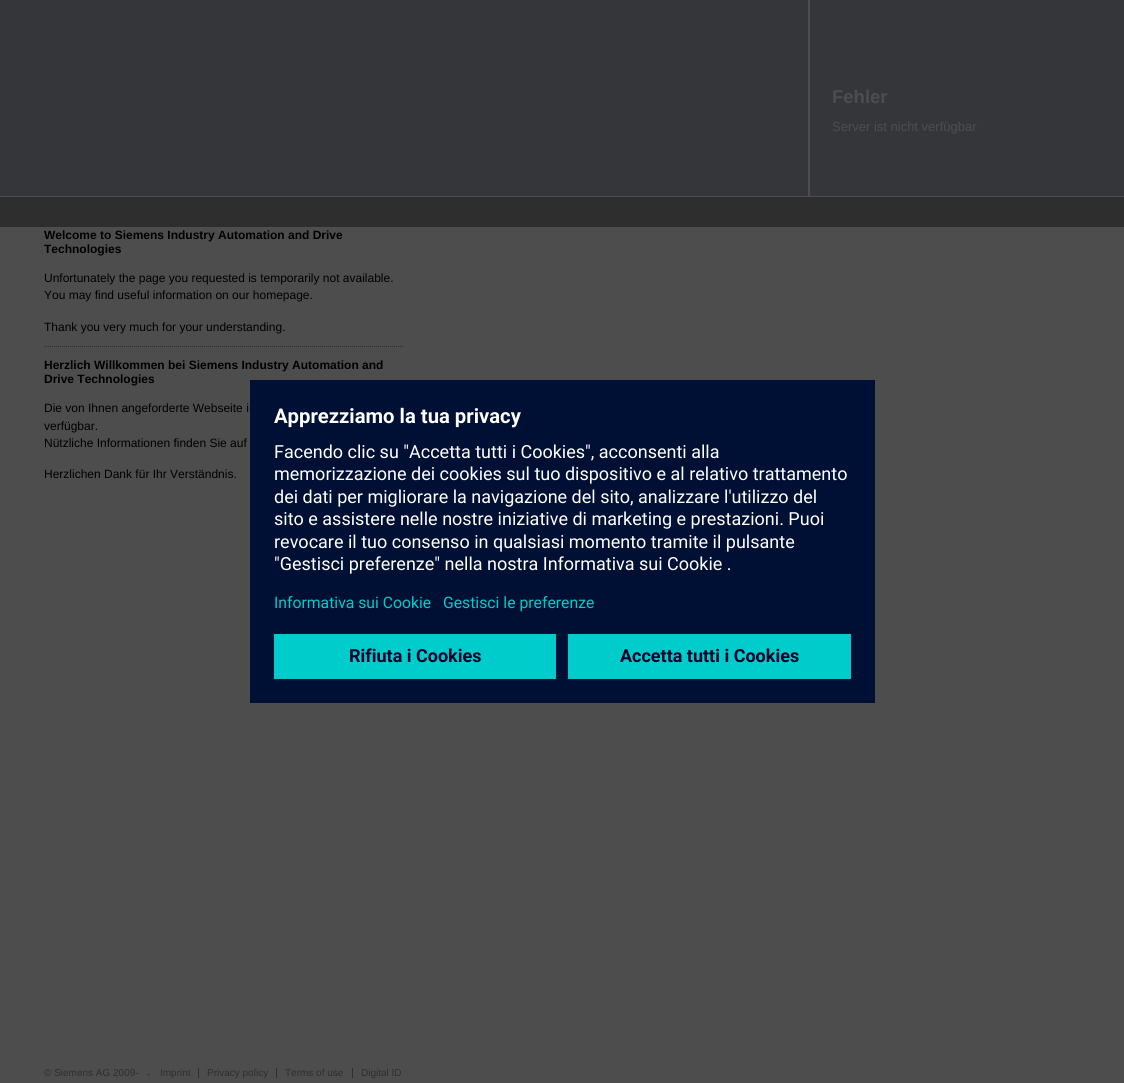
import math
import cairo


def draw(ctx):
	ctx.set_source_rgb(0.302, 0.302, 0.302)
	ctx.paint()
	ctx.set_source_rgb(0.208, 0.212, 0.224)
	ctx.rectangle(0, 0, 1124, 196)
	ctx.fill()
	ctx.set_source_rgb(0.302, 0.302, 0.302)
	ctx.rectangle(808, 0, 2, 196)
	ctx.fill()
	ctx.select_font_face('Liberation Sans', cairo.FONT_SLANT_NORMAL, cairo.FONT_WEIGHT_BOLD)
	ctx.set_font_size(18.5)
	ctx.move_to(832, 103)
	ctx.show_text('Fehler')
	ctx.select_font_face('Liberation Sans')
	ctx.set_font_size(13)
	ctx.move_to(832, 131)
	ctx.show_text('Server ist nicht verfügbar')
	ctx.set_source_rgb(0.18, 0.18, 0.18)
	ctx.rectangle(0, 197, 1124, 30)
	ctx.fill()
	ctx.select_font_face('Liberation Sans', cairo.FONT_SLANT_NORMAL, cairo.FONT_WEIGHT_BOLD)
	ctx.set_font_size(12)
	ctx.set_source_rgb(0, 0, 0)
	ctx.move_to(44, 239)
	ctx.show_text('Welcome to Siemens Industry Automation and Drive')
	ctx.move_to(44, 253)
	ctx.show_text('Technologies')
	ctx.select_font_face('Liberation Sans')
	for x, y, s in [
		(44, 282, 'Unfortunately the page you requested is temporarily not available.'),
		(44, 299, 'You may find useful information on our homepage.'),
		(44, 331, 'Thank you very much for your understanding.'),
	]:
		ctx.move_to(x, y)
		ctx.show_text(s)
	ctx.new_path()
	ctx.move_to(44, 346.5)
	ctx.line_to(404, 346.5)
	ctx.set_source_rgb(0.18, 0.18, 0.18)
	ctx.set_line_width(1)
	ctx.set_dash([1, 1])
	ctx.stroke()
	ctx.select_font_face('Liberation Sans', cairo.FONT_SLANT_NORMAL, cairo.FONT_WEIGHT_BOLD)
	ctx.set_source_rgb(0, 0, 0)
	ctx.move_to(44, 369)
	ctx.show_text('Herzlich Willkommen bei Siemens Industry Automation and')
	ctx.move_to(44, 383)
	ctx.show_text('Drive Technologies')
	ctx.select_font_face('Liberation Sans')
	for x, y, s in [
		(44, 412, 'Die von Ihnen angeforderte Webseite i'),
		(44, 430, 'verfügbar.'),
		(44, 447, 'Nützliche Informationen finden Sie auf'),
		(44, 478, 'Herzlichen Dank für Ihr Verständnis.'),
	]:
		ctx.move_to(x, y)
		ctx.show_text(s)
	ctx.set_font_size(10)
	ctx.set_source_rgb(0.18, 0.18, 0.18)
	for x, y, s in [
		(44, 1076, '© Siemens AG 2009-'),
		(147, 1077, '-'),
		(160, 1076, 'Imprint'),
	]:
		ctx.move_to(x, y)
		ctx.show_text(s)
	ctx.rectangle(198, 1068, 1, 10)
	ctx.fill()
	ctx.move_to(207, 1076)
	ctx.show_text('Privacy policy')
	ctx.rectangle(276, 1068, 1, 10)
	ctx.fill()
	ctx.move_to(285, 1076)
	ctx.show_text('Terms of use')
	ctx.rectangle(352, 1068, 1, 10)
	ctx.fill()
	ctx.move_to(361, 1076)
	ctx.show_text('Digital ID')
	ctx.set_source_rgb(0, 0.063, 0.204)
	ctx.rectangle(250, 380, 625, 323)
	ctx.fill()
	ctx.select_font_face('Roboto', cairo.FONT_SLANT_NORMAL, cairo.FONT_WEIGHT_BOLD)
	ctx.set_font_size(20.25)
	ctx.set_source_rgb(1, 1, 1)
	ctx.move_to(274, 423)
	ctx.show_text('Apprezziamo la tua privacy')
	ctx.select_font_face('Roboto')
	ctx.set_font_size(18)
	for x, y, s in [
		(274, 458, 'Facendo clic su "Accetta tutti i Cookies", acconsenti alla'),
		(274, 480, 'memorizzazione dei cookies sul tuo dispositivo e al relativo trattamento'),
		(274, 503, 'dei dati per migliorare la navigazione del sito, analizzare l\'utilizzo del'),
		(274, 525, 'sito e assistere nelle nostre iniziative di marketing e prestazioni. Puoi'),
		(274, 548, 'revocare il tuo consenso in qualsiasi momento tramite il pulsante'),
		(274, 570, '"Gestisci preferenze" nella nostra Informativa sui Cookie .'),
	]:
		ctx.move_to(x, y)
		ctx.show_text(s)
	ctx.set_font_size(15.75)
	ctx.set_source_rgb(0, 0.8, 0.8)
	ctx.move_to(274, 608)
	ctx.show_text('Informativa sui Cookie')
	ctx.move_to(443, 608)
	ctx.show_text('Gestisci le preferenze')
	ctx.rectangle(274, 634, 282, 45)
	ctx.fill()
	ctx.select_font_face('Roboto', cairo.FONT_SLANT_NORMAL, cairo.FONT_WEIGHT_BOLD)
	ctx.set_font_size(18)
	ctx.set_source_rgb(0, 0, 0.157)
	ctx.move_to(349, 662)
	ctx.show_text('Rifiuta i Cookies')
	ctx.set_source_rgb(0, 0.8, 0.8)
	ctx.rectangle(568, 634, 283, 45)
	ctx.fill()
	ctx.set_source_rgb(0, 0, 0.157)
	ctx.move_to(620, 662)
	ctx.show_text('Accetta tutti i Cookies')


surface = cairo.ImageSurface(cairo.FORMAT_RGB24, 1124, 1083)
ctx = cairo.Context(surface)
options = cairo.FontOptions()
options.set_hint_metrics(cairo.HINT_METRICS_OFF)
options.set_hint_style(cairo.HINT_STYLE_NONE)
ctx.set_font_options(options)
ctx.set_miter_limit(4)
draw(ctx)
surface.write_to_png('image.png')
